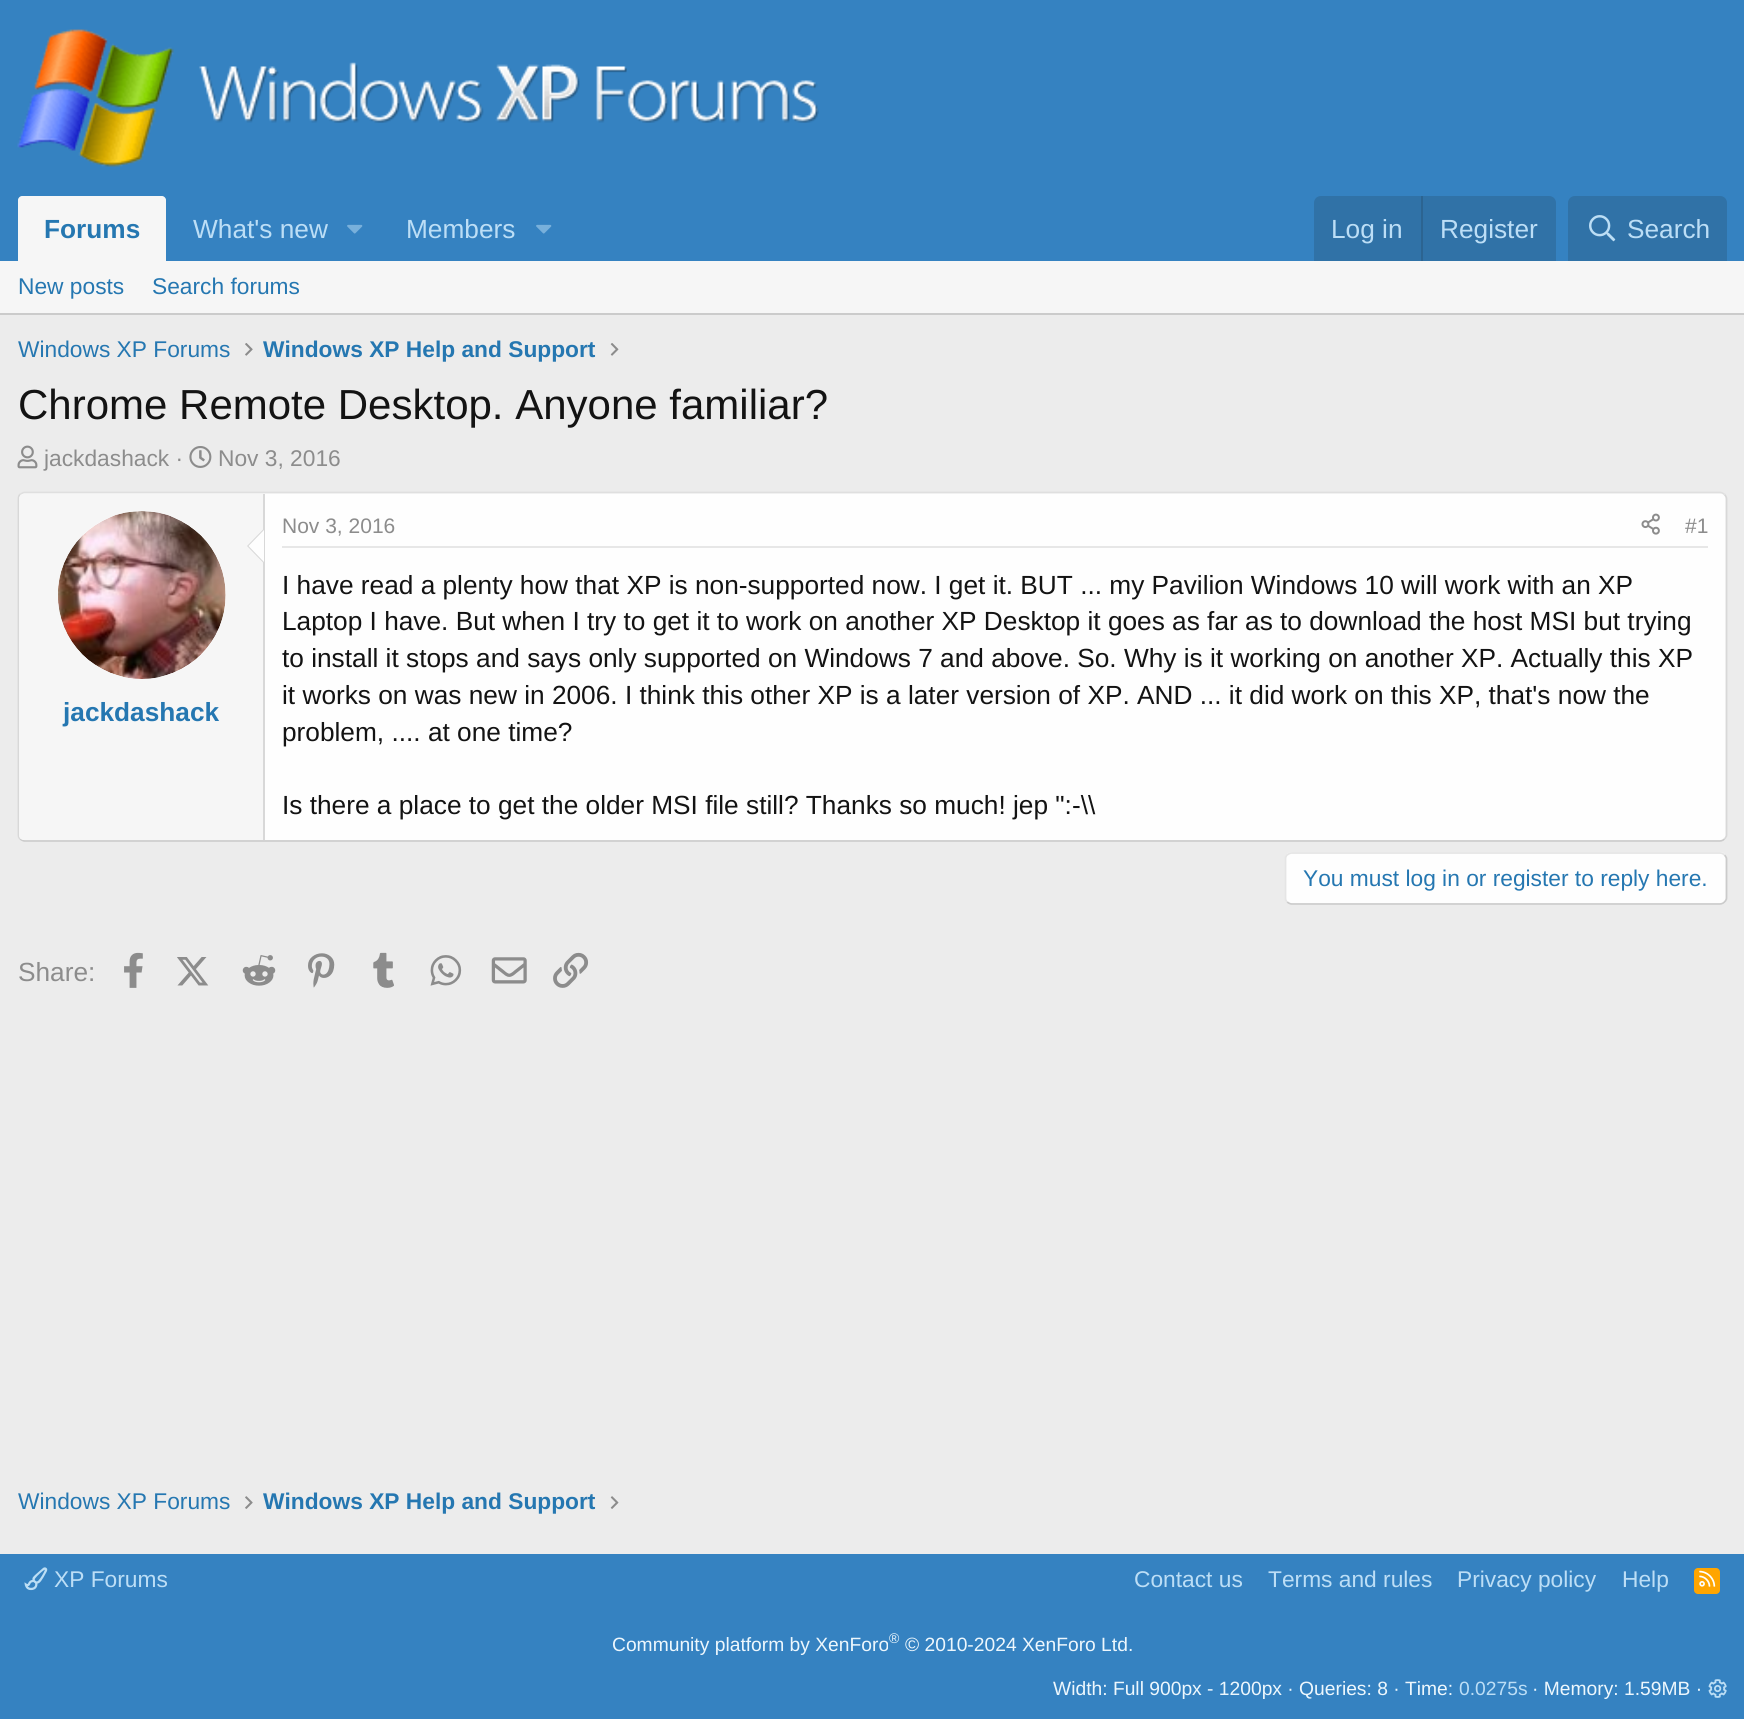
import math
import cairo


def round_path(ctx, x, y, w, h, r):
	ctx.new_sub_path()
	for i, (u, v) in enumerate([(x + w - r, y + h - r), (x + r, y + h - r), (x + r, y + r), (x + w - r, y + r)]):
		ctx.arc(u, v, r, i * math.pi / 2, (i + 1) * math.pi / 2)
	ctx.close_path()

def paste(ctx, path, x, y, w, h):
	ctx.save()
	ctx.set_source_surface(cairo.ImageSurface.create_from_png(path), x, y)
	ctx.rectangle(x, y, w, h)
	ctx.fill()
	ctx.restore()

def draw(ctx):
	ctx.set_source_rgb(0.925, 0.925, 0.925)
	ctx.paint()
	ctx.set_source_rgb(0.208, 0.51, 0.757)
	ctx.rectangle(0, 0, 1744, 261)
	ctx.fill()
	paste(ctx, 'media/1.png', 17, 29, 802, 138)
	ctx.set_source_rgb(0.961, 0.961, 0.961)
	ctx.new_path()
	ctx.move_to(22, 196)
	ctx.line_to(162, 196)
	ctx.curve_to(164, 196, 166, 198, 166, 200)
	ctx.line_to(166, 261)
	ctx.line_to(18, 261)
	ctx.line_to(18, 200)
	ctx.curve_to(18, 198, 20, 196, 22, 196)
	ctx.close_path()
	ctx.fill()
	ctx.select_font_face('Liberation Sans', cairo.FONT_SLANT_NORMAL, cairo.FONT_WEIGHT_BOLD)
	ctx.set_font_size(26.25)
	ctx.set_source_rgb(0.145, 0.467, 0.694)
	ctx.move_to(44, 238)
	ctx.show_text('Forums')
	ctx.select_font_face('Liberation Sans')
	ctx.set_source_rgb(0.737, 0.871, 0.961)
	ctx.move_to(193, 238)
	ctx.show_text('What\'s new')
	paste(ctx, 'media/2.png', 347, 224, 16, 10)
	ctx.move_to(406, 238)
	ctx.show_text('Members')
	paste(ctx, 'media/2.png', 536, 224, 16, 10)
	ctx.set_source_rgb(0.188, 0.447, 0.655)
	ctx.new_path()
	ctx.move_to(1321, 196)
	ctx.line_to(1549, 196)
	ctx.curve_to(1553, 196, 1556, 199, 1556, 203)
	ctx.line_to(1556, 261)
	ctx.line_to(1314, 261)
	ctx.line_to(1314, 203)
	ctx.curve_to(1314, 199, 1317, 196, 1321, 196)
	ctx.close_path()
	ctx.fill()
	ctx.set_source_rgb(0.737, 0.871, 0.961)
	ctx.move_to(1331, 238)
	ctx.show_text('Log in')
	ctx.set_source_rgb(0.173, 0.392, 0.569)
	ctx.rectangle(1421, 196, 2, 65)
	ctx.fill()
	ctx.set_source_rgb(0.737, 0.871, 0.961)
	ctx.move_to(1440, 238)
	ctx.show_text('Register')
	ctx.set_source_rgb(0.188, 0.447, 0.655)
	ctx.new_path()
	ctx.move_to(1575, 196)
	ctx.line_to(1720, 196)
	ctx.curve_to(1724, 196, 1727, 199, 1727, 203)
	ctx.line_to(1727, 261)
	ctx.line_to(1568, 261)
	ctx.line_to(1568, 203)
	ctx.curve_to(1568, 199, 1571, 196, 1575, 196)
	ctx.close_path()
	ctx.fill()
	paste(ctx, 'media/3.png', 1589, 215, 27, 27)
	ctx.set_source_rgb(0.737, 0.871, 0.961)
	ctx.move_to(1627, 238)
	ctx.show_text('Search')
	ctx.set_source_rgb(0.961, 0.961, 0.961)
	ctx.rectangle(0, 261, 1744, 52)
	ctx.fill()
	ctx.set_source_rgb(0.796, 0.796, 0.796)
	ctx.rectangle(0, 313, 1744, 2)
	ctx.fill()
	ctx.set_font_size(22.75)
	ctx.set_source_rgb(0.145, 0.467, 0.694)
	for x, y, s in [
		(18, 294, 'New posts'),
		(152, 294, 'Search forums'),
		(18, 357, 'Windows XP Forums'),
	]:
		ctx.move_to(x, y)
		ctx.show_text(s)
	paste(ctx, 'media/4.png', 245, 343, 8, 13)
	ctx.select_font_face('Liberation Sans', cairo.FONT_SLANT_NORMAL, cairo.FONT_WEIGHT_BOLD)
	ctx.move_to(263, 357)
	ctx.show_text('Windows XP Help and Support')
	paste(ctx, 'media/5.png', 610, 343, 9, 13)
	ctx.select_font_face('Liberation Sans')
	ctx.set_font_size(42)
	ctx.set_source_rgb(0.078, 0.078, 0.078)
	ctx.move_to(18, 419)
	ctx.show_text('Chrome Remote Desktop. Anyone familiar?')
	paste(ctx, 'media/6.png', 17, 445, 21, 24)
	ctx.set_font_size(22.75)
	ctx.set_source_rgb(0.549, 0.549, 0.549)
	ctx.move_to(44, 466)
	ctx.show_text('jackdashack ·')
	paste(ctx, 'media/7.png', 189, 446, 23, 22)
	ctx.move_to(218, 466)
	ctx.show_text('Nov 3, 2016')
	ctx.set_source_rgb(0.996, 0.996, 0.996)
	round_path(ctx, 18, 492, 1709, 350, 7)
	ctx.fill()
	ctx.new_path()
	ctx.move_to(20, 494.5)
	ctx.curve_to(21.5, 493.5, 23, 492.5, 24.5, 492.5)
	ctx.line_to(1720, 492.5)
	ctx.curve_to(1722, 492.5, 1723.5, 493.5, 1724.5, 494.5)
	ctx.set_source_rgb(0.875, 0.875, 0.875)
	ctx.set_line_width(1.8)
	ctx.stroke()
	ctx.new_path()
	ctx.move_to(1724.5, 494.5)
	ctx.curve_to(1725.5, 495.5, 1726.5, 497, 1726.5, 499)
	ctx.line_to(1726.5, 835)
	ctx.curve_to(1726.5, 836.5, 1725.5, 838, 1724.5, 839)
	ctx.set_source_rgb(0.847, 0.847, 0.847)
	ctx.stroke()
	ctx.new_path()
	ctx.move_to(1724.5, 839)
	ctx.curve_to(1723.5, 840, 1722, 841, 1720, 841)
	ctx.line_to(24.5, 841)
	ctx.curve_to(23, 841, 21.5, 840, 20, 839)
	ctx.set_source_rgb(0.796, 0.796, 0.796)
	ctx.stroke()
	ctx.new_path()
	ctx.move_to(20, 839)
	ctx.curve_to(19, 838, 18.5, 836.5, 18.5, 835)
	ctx.line_to(18.5, 499)
	ctx.curve_to(18.5, 497, 19, 495.5, 20, 494.5)
	ctx.set_source_rgb(0.847, 0.847, 0.847)
	ctx.stroke()
	ctx.set_source_rgb(0.961, 0.961, 0.961)
	ctx.new_path()
	ctx.move_to(24, 494)
	ctx.line_to(264, 494)
	ctx.line_to(264, 840)
	ctx.line_to(24, 840)
	ctx.curve_to(21, 840, 19, 838, 19, 835)
	ctx.line_to(19, 499)
	ctx.curve_to(19, 496, 21, 494, 24, 494)
	ctx.close_path()
	ctx.fill()
	ctx.set_source_rgb(0.847, 0.847, 0.847)
	ctx.rectangle(263, 494, 2, 346)
	ctx.fill()
	ctx.set_source_rgb(0.996, 0.996, 0.996)
	ctx.arc(142, 595, 84, 0, 2 * math.pi)
	ctx.fill()
	paste(ctx, 'media/8.png', 58, 511, 168, 168)
	ctx.set_source_rgb(0.847, 0.847, 0.847)
	ctx.new_path()
	ctx.move_to(264, 528.5)
	ctx.line_to(264, 563.5)
	ctx.line_to(247, 546)
	ctx.close_path()
	ctx.fill()
	ctx.set_source_rgb(0.996, 0.996, 0.996)
	ctx.new_path()
	ctx.move_to(264, 530)
	ctx.line_to(264, 562)
	ctx.line_to(248.5, 546)
	ctx.close_path()
	ctx.fill()
	ctx.select_font_face('Liberation Sans', cairo.FONT_SLANT_NORMAL, cairo.FONT_WEIGHT_BOLD)
	ctx.set_font_size(26.25)
	ctx.set_source_rgb(0.145, 0.467, 0.694)
	ctx.move_to(63, 721)
	ctx.show_text('jackdashack')
	ctx.set_source_rgb(0.906, 0.906, 0.906)
	ctx.rectangle(282, 546, 1426, 2)
	ctx.fill()
	ctx.select_font_face('Liberation Sans')
	ctx.set_font_size(21)
	ctx.set_source_rgb(0.549, 0.549, 0.549)
	ctx.move_to(282, 533)
	ctx.show_text('Nov 3, 2016')
	paste(ctx, 'media/9.png', 1641, 513, 19, 22)
	ctx.move_to(1685, 533)
	ctx.show_text('#1')
	ctx.set_font_size(26.25)
	ctx.set_source_rgb(0.078, 0.078, 0.078)
	for x, y, s in [
		(282, 594, 'I have read a plenty how that XP is non-supported now. I get it. BUT ... my Pavilion Windows 10 will work with an XP'),
		(282, 630, 'Laptop I have. But when I try to get it to work on another XP Desktop it goes as far as to download the host MSI but trying'),
		(282, 667, 'to install it stops and says only supported on Windows 7 and above. So. Why is it working on another XP. Actually this XP'),
		(282, 704, 'it works on was new in 2006. I think this other XP is a later version of XP. AND ... it did work on this XP, that\'s now the'),
		(282, 741, 'problem, .... at one time?'),
		(282, 814, 'Is there a place to get the older MSI file still? Thanks so much! jep ":-\\\\'),
	]:
		ctx.move_to(x, y)
		ctx.show_text(s)
	ctx.set_source_rgb(0.996, 0.996, 0.996)
	round_path(ctx, 1285, 852, 442, 53, 7)
	ctx.fill()
	ctx.new_path()
	ctx.move_to(1724.5, 855)
	ctx.curve_to(1725.5, 856, 1726.5, 857.5, 1726.5, 859)
	ctx.line_to(1726.5, 898)
	ctx.curve_to(1726.5, 899.5, 1725.5, 901, 1724.5, 902)
	ctx.curve_to(1723.5, 903, 1722, 904, 1720, 904)
	ctx.line_to(1291.5, 904)
	ctx.curve_to(1290, 904, 1288.5, 903, 1287, 902)
	ctx.set_source_rgb(0.796, 0.796, 0.796)
	ctx.stroke()
	ctx.new_path()
	ctx.move_to(1287, 902)
	ctx.curve_to(1286, 901, 1285.5, 899.5, 1285.5, 898)
	ctx.line_to(1285.5, 859)
	ctx.curve_to(1285.5, 857.5, 1286, 856, 1287, 855)
	ctx.curve_to(1288.5, 854, 1290, 853, 1291.5, 853)
	ctx.line_to(1720, 853)
	ctx.curve_to(1722, 853, 1723.5, 854, 1724.5, 855)
	ctx.set_source_rgb(0.898, 0.898, 0.898)
	ctx.stroke()
	ctx.set_font_size(22.75)
	ctx.set_source_rgb(0.145, 0.467, 0.694)
	ctx.move_to(1303, 886)
	ctx.show_text('You must log in or register to reply here.')
	ctx.set_font_size(26.25)
	ctx.set_source_rgb(0.549, 0.549, 0.549)
	ctx.move_to(18, 981)
	ctx.show_text('Share:')
	paste(ctx, 'media/10.png', 124, 952, 19, 36)
	paste(ctx, 'media/11.png', 177, 957, 32, 29)
	paste(ctx, 'media/12.png', 242, 955, 34, 31)
	paste(ctx, 'media/13.png', 308, 953, 27, 35)
	paste(ctx, 'media/14.png', 373, 952, 21, 36)
	paste(ctx, 'media/15.png', 430, 955, 32, 31)
	paste(ctx, 'media/16.png', 491, 957, 36, 27)
	paste(ctx, 'media/17.png', 553, 952, 36, 36)
	ctx.set_font_size(22.75)
	ctx.set_source_rgb(0.145, 0.467, 0.694)
	ctx.move_to(18, 1509)
	ctx.show_text('Windows XP Forums')
	paste(ctx, 'media/18.png', 245, 1496, 8, 13)
	ctx.select_font_face('Liberation Sans', cairo.FONT_SLANT_NORMAL, cairo.FONT_WEIGHT_BOLD)
	ctx.move_to(263, 1509)
	ctx.show_text('Windows XP Help and Support')
	paste(ctx, 'media/19.png', 610, 1496, 9, 13)
	ctx.set_source_rgb(0.208, 0.51, 0.757)
	ctx.rectangle(0, 1554, 1744, 165)
	ctx.fill()
	paste(ctx, 'media/20.png', 24, 1567, 24, 24)
	ctx.select_font_face('Liberation Sans')
	ctx.set_source_rgb(0.737, 0.871, 0.961)
	for x, y, s in [
		(54, 1587, 'XP Forums'),
		(1134, 1587, 'Contact us'),
		(1268, 1587, 'Terms and rules'),
		(1457, 1587, 'Privacy policy'),
		(1622, 1587, 'Help'),
	]:
		ctx.move_to(x, y)
		ctx.show_text(s)
	ctx.set_source_rgb(1, 0.647, 0)
	round_path(ctx, 1694, 1568, 26, 26, 4)
	ctx.fill()
	paste(ctx, 'media/21.png', 1699, 1570, 17, 17)
	ctx.set_font_size(19.25)
	ctx.set_source_rgb(0.929, 0.965, 0.992)
	ctx.move_to(612, 1651)
	ctx.show_text('Community platform by XenForo')
	ctx.set_font_size(14)
	ctx.move_to(889, 1643)
	ctx.show_text('®')
	ctx.set_font_size(19.25)
	ctx.move_to(905, 1651)
	ctx.show_text('© 2010-2024 XenForo Ltd.')
	ctx.move_to(1053, 1695)
	ctx.show_text('Width: Full 900px - 1200px · Queries: 8 · Time:')
	ctx.set_source_rgb(0.737, 0.871, 0.961)
	ctx.move_to(1459, 1695)
	ctx.show_text('0.0275s')
	ctx.set_source_rgb(0.929, 0.965, 0.992)
	ctx.move_to(1532, 1695)
	ctx.show_text('· Memory: 1.59MB ·')
	paste(ctx, 'media/22.png', 1708, 1679, 19, 19)


surface = cairo.ImageSurface(cairo.FORMAT_RGB24, 1744, 1719)
ctx = cairo.Context(surface)
options = cairo.FontOptions()
options.set_hint_metrics(cairo.HINT_METRICS_OFF)
options.set_hint_style(cairo.HINT_STYLE_NONE)
ctx.set_font_options(options)
ctx.set_miter_limit(4)
draw(ctx)
surface.write_to_png('image.png')
